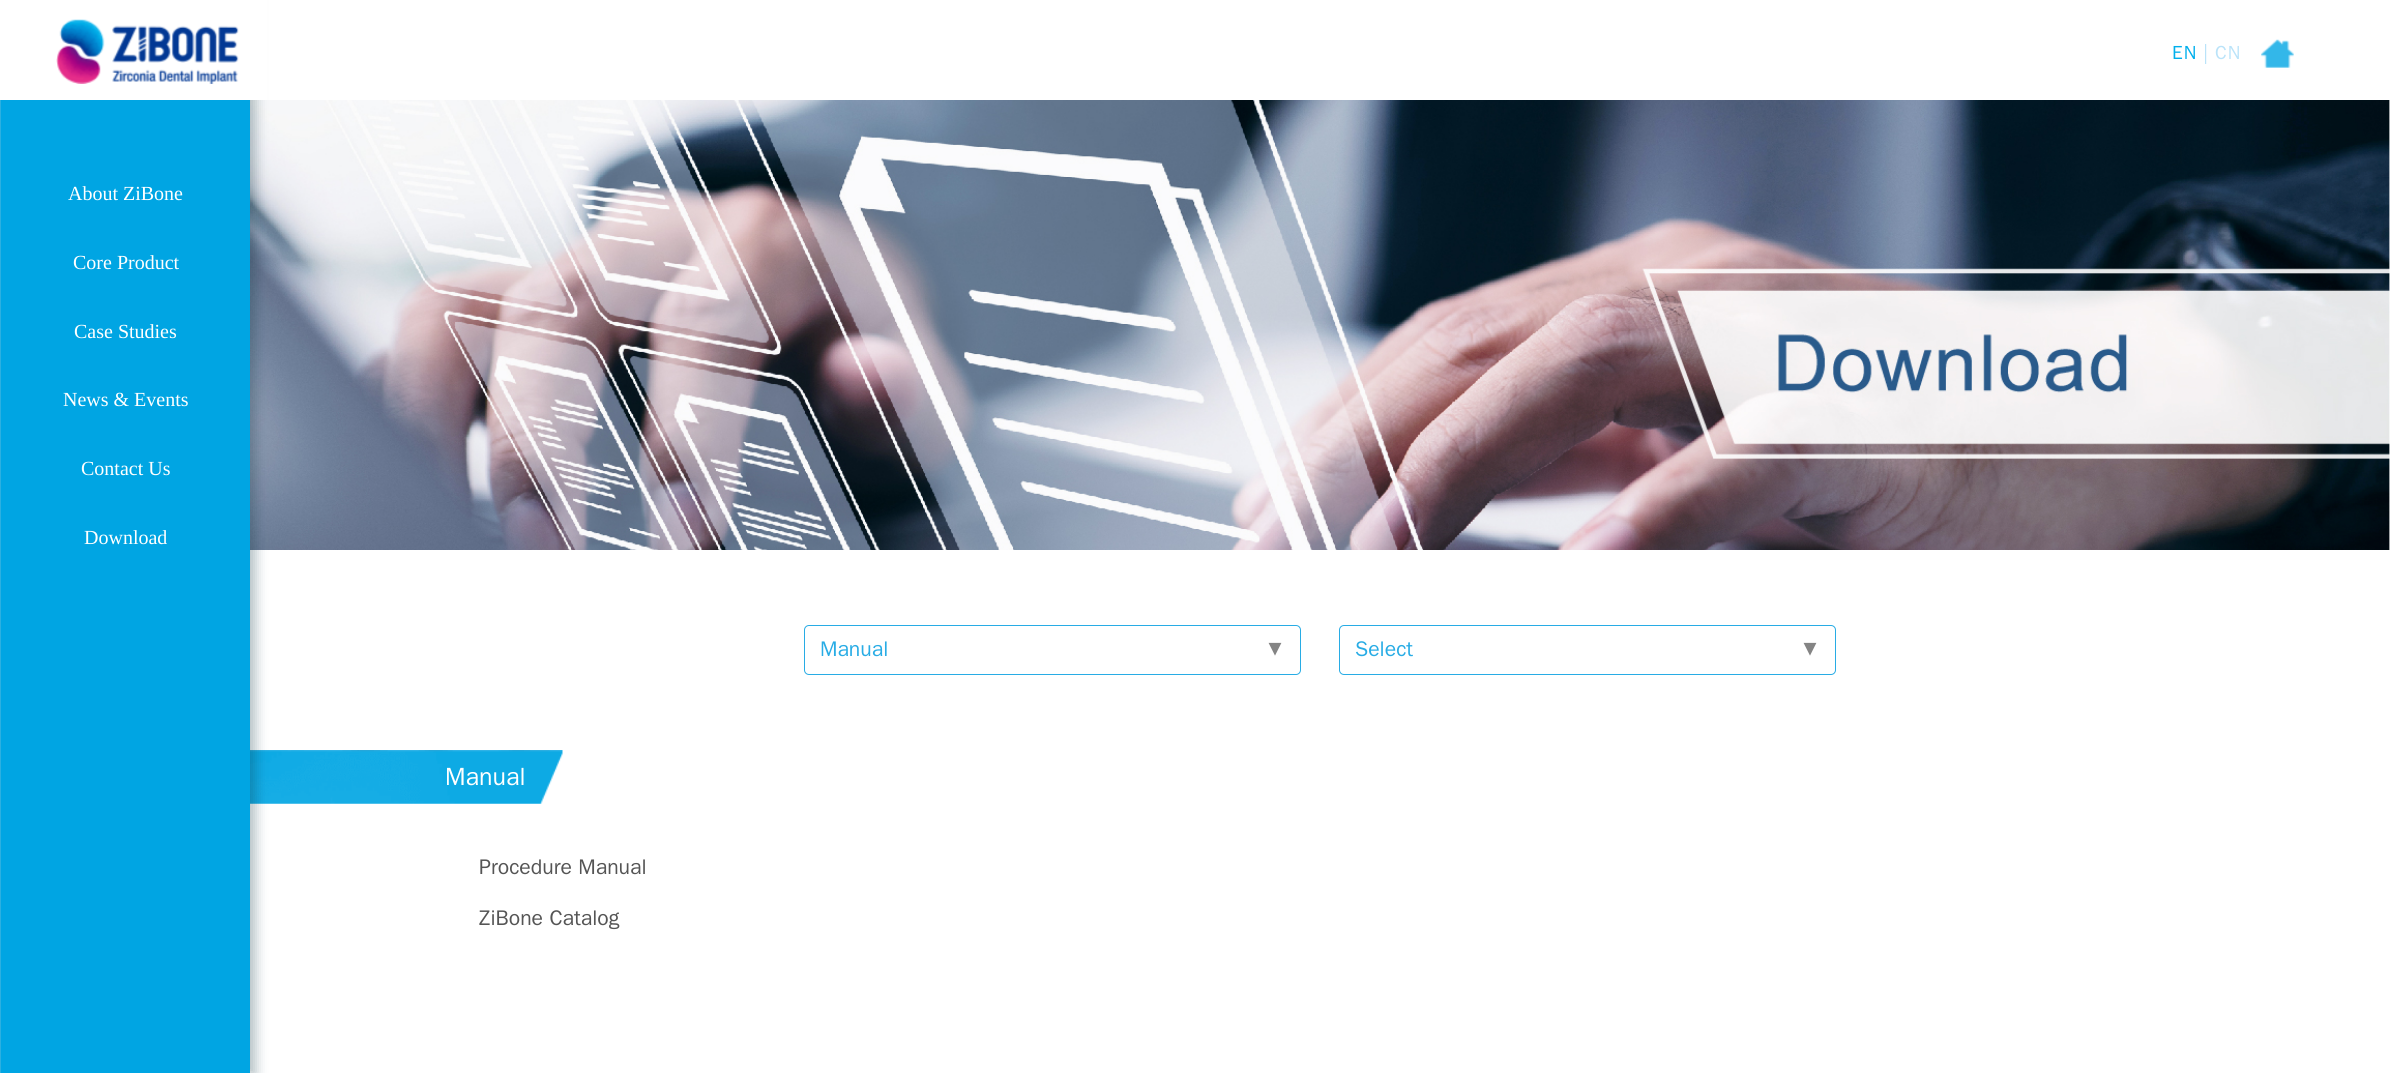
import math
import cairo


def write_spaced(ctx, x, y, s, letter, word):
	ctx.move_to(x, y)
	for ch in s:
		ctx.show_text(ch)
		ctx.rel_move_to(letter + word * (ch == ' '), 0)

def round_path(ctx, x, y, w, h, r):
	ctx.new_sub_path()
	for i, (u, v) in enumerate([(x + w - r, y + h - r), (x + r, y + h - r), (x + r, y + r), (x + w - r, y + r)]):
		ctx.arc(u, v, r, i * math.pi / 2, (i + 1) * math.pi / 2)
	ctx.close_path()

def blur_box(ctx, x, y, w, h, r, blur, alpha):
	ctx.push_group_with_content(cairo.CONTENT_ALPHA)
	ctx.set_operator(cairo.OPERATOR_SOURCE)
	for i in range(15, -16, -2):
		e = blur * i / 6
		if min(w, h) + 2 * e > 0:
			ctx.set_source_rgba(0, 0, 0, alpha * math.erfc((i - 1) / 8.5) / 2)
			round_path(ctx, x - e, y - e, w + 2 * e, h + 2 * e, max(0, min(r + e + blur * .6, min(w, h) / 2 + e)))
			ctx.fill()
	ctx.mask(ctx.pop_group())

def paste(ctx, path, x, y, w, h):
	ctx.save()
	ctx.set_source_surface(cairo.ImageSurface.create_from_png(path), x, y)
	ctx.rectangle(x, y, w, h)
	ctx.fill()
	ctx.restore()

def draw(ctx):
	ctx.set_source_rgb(1, 1, 1)
	ctx.paint()
	paste(ctx, 'media/3.png', 250, 100, 2140, 450)
	paste(ctx, 'media/4.png', 250, 750, 313, 54)
	ctx.set_source_rgb(0.012, 0.18, 0.235)
	blur_box(ctx, 6, 0, 250, 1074, 0, 6, 0.3)
	ctx.set_source_rgb(1, 1, 1)
	ctx.rectangle(0, 0, 267, 100)
	ctx.fill()
	paste(ctx, 'media/1.png', 56, 19, 183, 65)
	ctx.select_font_face('WenQuanYi Zen Hei Medium')
	ctx.set_font_size(19)
	ctx.set_source_rgb(0, 0.686, 0.925)
	write_spaced(ctx, 2172, 59, 'EN', 1, 0)
	ctx.set_font_size(20)
	ctx.set_source_rgb(0.729, 0.89, 0.976)
	ctx.move_to(2203, 59)
	ctx.show_text('|')
	ctx.set_font_size(19)
	write_spaced(ctx, 2215, 59, 'CN', 1, 0)
	paste(ctx, 'media/2.png', 2261, 39, 33, 29)
	ctx.set_source_rgb(0, 0.647, 0.89)
	ctx.rectangle(1, 100, 249, 973)
	ctx.fill()
	ctx.set_source_rgb(0.173, 0.69, 0.882)
	ctx.rectangle(0, 100, 1, 973)
	ctx.fill()
	ctx.select_font_face('Liberation Serif')
	ctx.set_font_size(20)
	ctx.set_source_rgb(1, 1, 1)
	for x, y, s in [
		(68, 200, 'About ZiBone'),
		(73, 269, 'Core Product'),
		(74, 338, 'Case Studies'),
		(63, 406, 'News & Events'),
		(81, 475, 'Contact Us'),
		(84, 544, 'Download'),
	]:
		ctx.move_to(x, y)
		ctx.show_text(s)
	round_path(ctx, 804.5, 625.5, 496, 49, 4.5)
	ctx.set_source_rgb(0.157, 0.675, 0.898)
	ctx.set_line_width(1)
	ctx.stroke()
	ctx.select_font_face('WenQuanYi Zen Hei Medium')
	ctx.set_font_size(21.25)
	ctx.move_to(820, 656)
	ctx.show_text('Manual')
	ctx.set_font_size(16)
	ctx.set_source_rgb(0.518, 0.518, 0.518)
	ctx.move_to(1267, 655)
	ctx.show_text('▼')
	round_path(ctx, 1339.5, 625.5, 496, 49, 4.5)
	ctx.set_source_rgb(0.157, 0.675, 0.898)
	ctx.stroke()
	ctx.set_font_size(21.25)
	ctx.move_to(1355, 656)
	ctx.show_text('Select')
	ctx.set_font_size(16)
	ctx.set_source_rgb(0.518, 0.518, 0.518)
	ctx.move_to(1802, 655)
	ctx.show_text('▼')
	ctx.set_font_size(25)
	ctx.set_source_rgb(1, 1, 1)
	ctx.move_to(445, 785)
	ctx.show_text('Manual')
	ctx.set_font_size(21.25)
	ctx.set_source_rgb(0.333, 0.333, 0.333)
	ctx.move_to(479, 874)
	ctx.show_text('Procedure Manual')
	ctx.move_to(479, 925)
	ctx.show_text('ZiBone Catalog')


surface = cairo.ImageSurface(cairo.FORMAT_RGB24, 2390, 1073)
ctx = cairo.Context(surface)
options = cairo.FontOptions()
options.set_hint_metrics(cairo.HINT_METRICS_OFF)
options.set_hint_style(cairo.HINT_STYLE_NONE)
ctx.set_font_options(options)
ctx.set_miter_limit(4)
draw(ctx)
surface.write_to_png('image.png')
